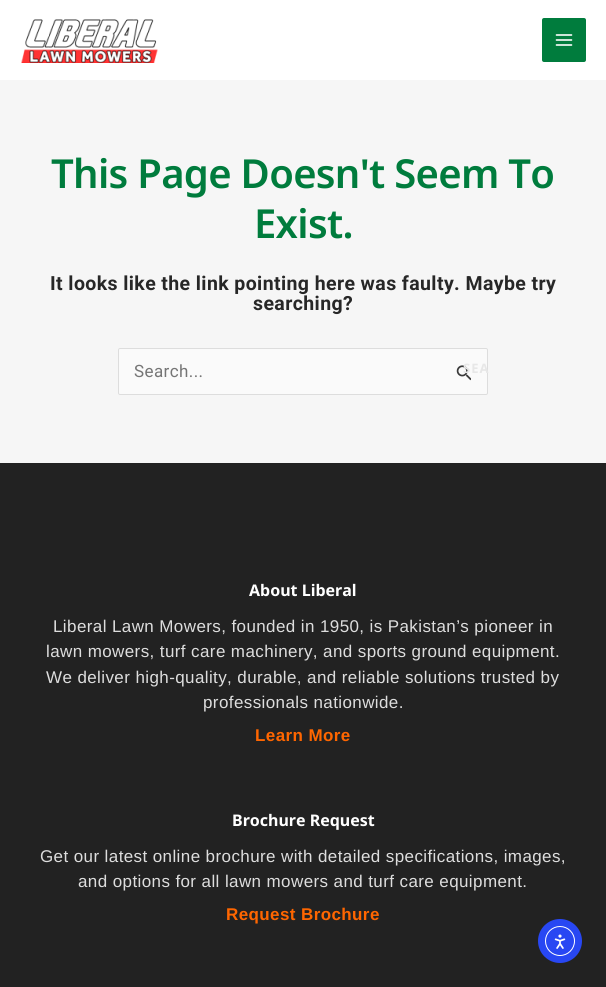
import math
import cairo


def write_spaced(ctx, x, y, s, letter, word):
	ctx.move_to(x, y)
	for ch in s:
		ctx.show_text(ch)
		ctx.rel_move_to(letter + word * (ch == ' '), 0)

def round_path(ctx, x, y, w, h, r):
	ctx.new_sub_path()
	for i, (u, v) in enumerate([(x + w - r, y + h - r), (x + r, y + h - r), (x + r, y + r), (x + w - r, y + r)]):
		ctx.arc(u, v, r, i * math.pi / 2, (i + 1) * math.pi / 2)
	ctx.close_path()

def paste(ctx, path, x, y, w, h):
	ctx.save()
	ctx.set_source_surface(cairo.ImageSurface.create_from_png(path), x, y)
	ctx.rectangle(x, y, w, h)
	ctx.fill()
	ctx.restore()

def draw(ctx):
	ctx.set_source_rgb(0.961, 0.961, 0.961)
	ctx.paint()
	ctx.set_source_rgb(1, 1, 1)
	ctx.rectangle(0, 0, 606, 80)
	ctx.fill()
	paste(ctx, 'media/1.png', 21, 19, 137, 44)
	ctx.set_source_rgb(0, 0.486, 0.239)
	round_path(ctx, 542, 18, 44, 44, 2)
	ctx.fill()
	paste(ctx, 'media/2.png', 555, 34, 18, 12)
	ctx.select_font_face('Noto Sans SemiBold')
	ctx.set_font_size(40)
	write_spaced(ctx, 51, 188, 'This Page Doesn\'t Seem To', -0.7, 0)
	write_spaced(ctx, 254, 238, 'Exist.', -0.7, 0)
	ctx.select_font_face('Roboto', cairo.FONT_SLANT_NORMAL, cairo.FONT_WEIGHT_BOLD)
	ctx.set_font_size(19.5)
	ctx.set_source_rgb(0.153, 0.153, 0.153)
	write_spaced(ctx, 50, 290, 'It looks like the link pointing here was faulty. Maybe try', 0.4, 0)
	write_spaced(ctx, 253, 310, 'searching?', 0.4, 0)
	ctx.set_source_rgb(0.98, 0.98, 0.98)
	round_path(ctx, 118.5, 348.5, 369, 46, 1.5)
	ctx.fill_preserve()
	ctx.set_source_rgb(0.867, 0.867, 0.867)
	ctx.set_line_width(1)
	ctx.stroke()
	ctx.select_font_face('Roboto')
	ctx.set_font_size(17)
	ctx.set_source_rgb(0.459, 0.459, 0.459)
	write_spaced(ctx, 134, 377, 'Search...', 0.4, 0)
	paste(ctx, 'media/3.png', 456, 365, 15, 16)
	ctx.select_font_face('Noto Sans', cairo.FONT_SLANT_NORMAL, cairo.FONT_WEIGHT_BOLD)
	ctx.set_font_size(13)
	ctx.set_source_rgb(0.906, 0.906, 0.906)
	write_spaced(ctx, 463, 373, 'SEA', 1, 0)
	ctx.set_source_rgb(0.133, 0.133, 0.133)
	ctx.rectangle(0, 463, 606, 524)
	ctx.fill()
	ctx.set_font_size(16)
	ctx.set_source_rgb(1, 1, 1)
	ctx.move_to(249, 596)
	ctx.show_text('About Liberal')
	ctx.select_font_face('Liberation Sans')
	ctx.set_font_size(17)
	ctx.set_source_rgb(0.867, 0.867, 0.867)
	for x, y, s in [
		(53, 632, 'Liberal Lawn Mowers, founded in 1950, is Pakistan’s pioneer in'),
		(46, 657, 'lawn mowers, turf care machinery, and sports ground equipment.'),
		(46, 683, 'We deliver high-quality, durable, and reliable solutions trusted by'),
		(203, 708, 'professionals nationwide.'),
	]:
		write_spaced(ctx, x, y, s, 0.4, 0)
	ctx.select_font_face('Liberation Sans', cairo.FONT_SLANT_NORMAL, cairo.FONT_WEIGHT_BOLD)
	ctx.set_source_rgb(1, 0.4, 0)
	write_spaced(ctx, 255, 741, 'Learn More', 0.4, 0)
	ctx.select_font_face('Noto Sans', cairo.FONT_SLANT_NORMAL, cairo.FONT_WEIGHT_BOLD)
	ctx.set_font_size(16)
	ctx.set_source_rgb(1, 1, 1)
	ctx.move_to(232, 826)
	ctx.show_text('Brochure Request')
	ctx.select_font_face('Liberation Sans')
	ctx.set_font_size(17)
	ctx.set_source_rgb(0.867, 0.867, 0.867)
	write_spaced(ctx, 40, 862, 'Get our latest online brochure with detailed specifications, images,', 0.4, 0)
	write_spaced(ctx, 78, 887, 'and options for all lawn mowers and turf care equipment.', 0.4, 0)
	ctx.select_font_face('Liberation Sans', cairo.FONT_SLANT_NORMAL, cairo.FONT_WEIGHT_BOLD)
	ctx.set_source_rgb(1, 0.4, 0)
	write_spaced(ctx, 226, 920, 'Request Brochure', 0.4, 0)
	ctx.set_source_rgb(0.157, 0.278, 0.953)
	ctx.new_path()
	ctx.arc(560, 941, 22, 0, 2 * math.pi)
	ctx.fill()
	ctx.arc(560, 941, 14.5, 0, 2 * math.pi)
	ctx.set_source_rgb(1, 1, 1)
	ctx.stroke()
	paste(ctx, 'media/4.png', 554, 934, 12, 15)


surface = cairo.ImageSurface(cairo.FORMAT_RGB24, 606, 987)
ctx = cairo.Context(surface)
options = cairo.FontOptions()
options.set_hint_metrics(cairo.HINT_METRICS_OFF)
options.set_hint_style(cairo.HINT_STYLE_NONE)
ctx.set_font_options(options)
ctx.set_miter_limit(4)
draw(ctx)
surface.write_to_png('image.png')
